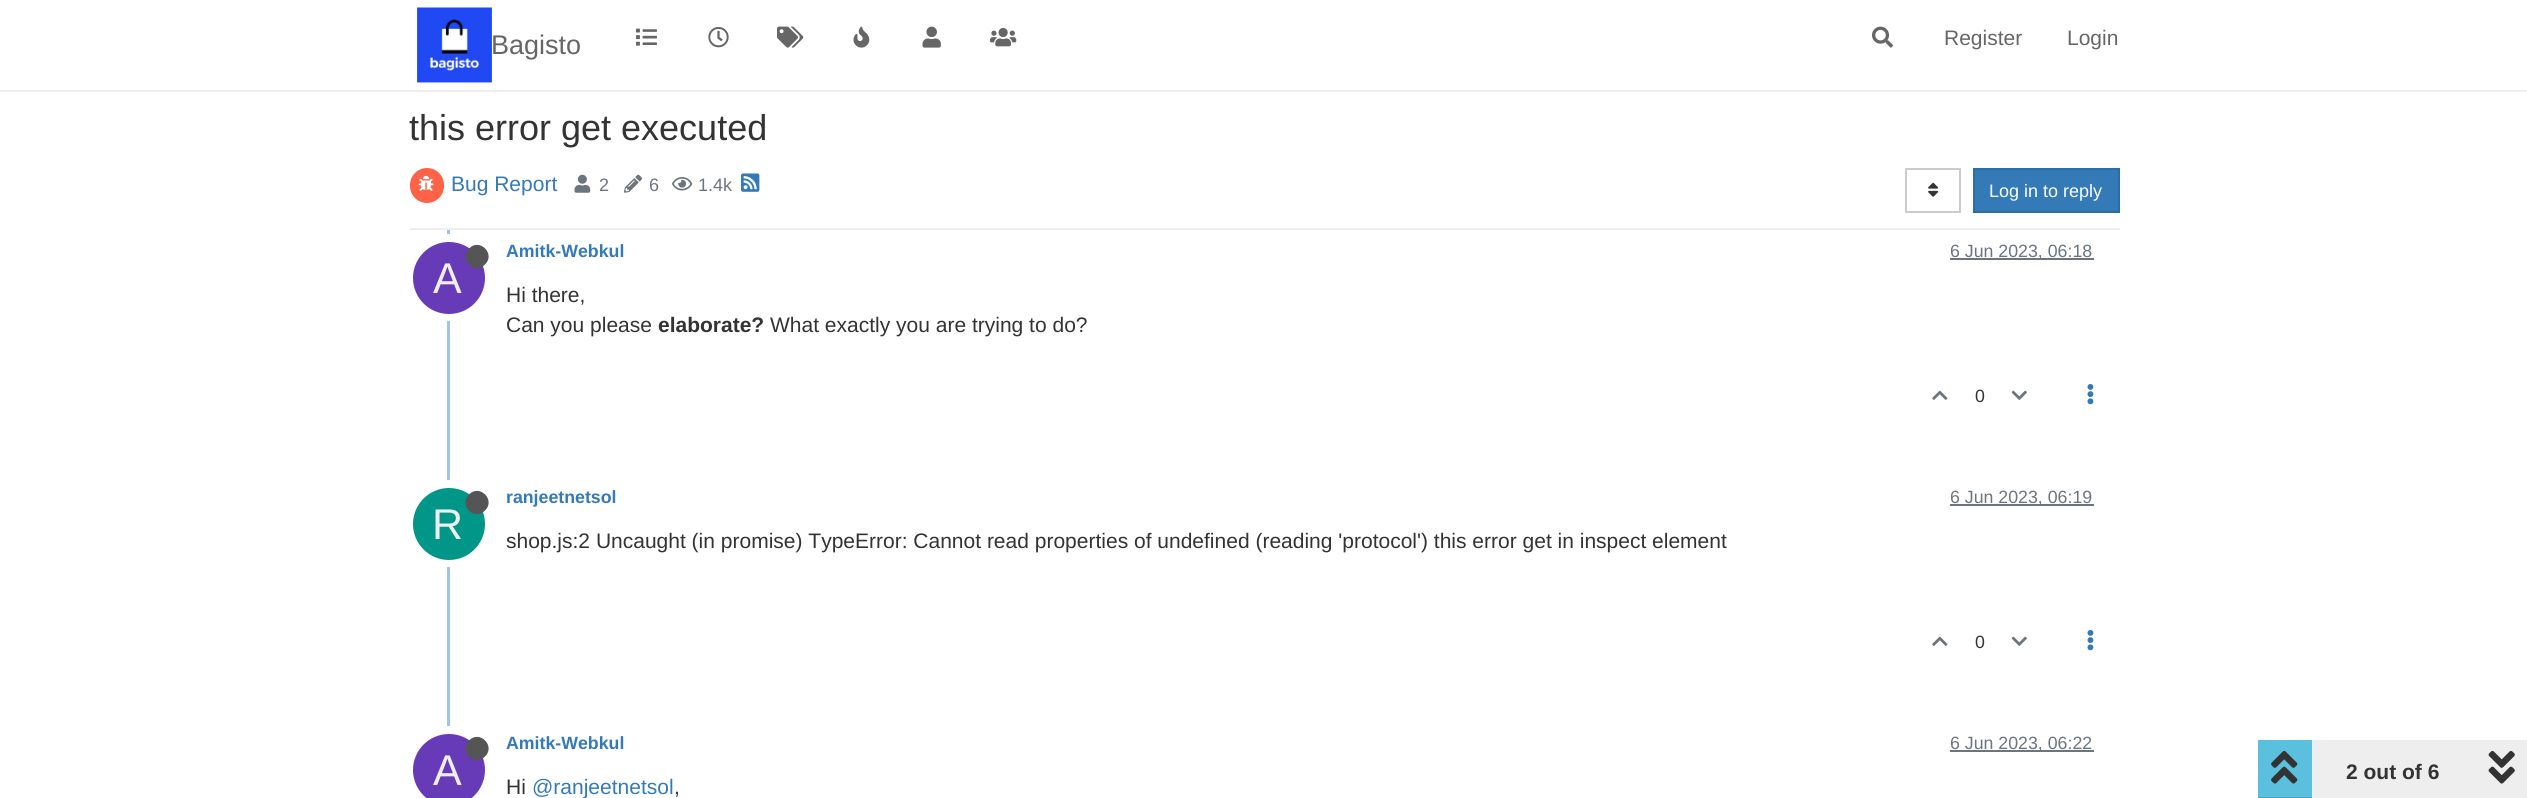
import math
import cairo


def round_path(ctx, x, y, w, h, r):
	ctx.new_sub_path()
	for i, (u, v) in enumerate([(x + w - r, y + h - r), (x + r, y + h - r), (x + r, y + r), (x + w - r, y + r)]):
		ctx.arc(u, v, r, i * math.pi / 2, (i + 1) * math.pi / 2)
	ctx.close_path()

def paste(ctx, path, x, y, w, h):
	ctx.save()
	ctx.set_source_surface(cairo.ImageSurface.create_from_png(path), x, y)
	ctx.rectangle(x, y, w, h)
	ctx.fill()
	ctx.restore()

def draw(ctx):
	ctx.set_source_rgb(1, 1, 1)
	ctx.paint()
	ctx.set_source_rgb(0.933, 0.933, 0.933)
	ctx.rectangle(0, 90, 2527, 2)
	ctx.fill()
	paste(ctx, 'media/1.png', 417, 7, 75, 76)
	ctx.select_font_face('Liberation Sans')
	ctx.set_font_size(27)
	ctx.set_source_rgb(0.4, 0.4, 0.4)
	ctx.move_to(491, 54)
	ctx.show_text('Bagisto')
	paste(ctx, 'media/2.png', 636, 28, 21, 18)
	paste(ctx, 'media/3.png', 708, 27, 21, 21)
	paste(ctx, 'media/4.png', 777, 26, 27, 22)
	paste(ctx, 'media/5.png', 853, 26, 17, 22)
	paste(ctx, 'media/6.png', 922, 26, 19, 22)
	paste(ctx, 'media/7.png', 990, 27, 27, 20)
	paste(ctx, 'media/8.png', 1872, 26, 21, 22)
	ctx.set_font_size(21)
	ctx.move_to(1944, 45)
	ctx.show_text('Register')
	ctx.move_to(2067, 45)
	ctx.show_text('Login')
	ctx.set_font_size(36)
	ctx.set_source_rgb(0.2, 0.2, 0.2)
	ctx.move_to(409, 140)
	ctx.show_text('this error get executed')
	ctx.set_source_rgb(0.933, 0.933, 0.933)
	ctx.rectangle(410, 228, 1710, 2)
	ctx.fill()
	ctx.set_source_rgb(1, 0.388, 0.278)
	round_path(ctx, 410, 168, 34, 35, 17)
	ctx.fill()
	paste(ctx, 'media/9.png', 418, 175, 16, 16)
	ctx.set_font_size(21)
	ctx.set_source_rgb(0.2, 0.478, 0.718)
	ctx.move_to(451, 191)
	ctx.show_text('Bug Report')
	paste(ctx, 'media/10.png', 574, 174, 17, 19)
	ctx.set_font_size(18)
	ctx.set_source_rgb(0.424, 0.459, 0.49)
	ctx.move_to(599, 191)
	ctx.show_text('2')
	paste(ctx, 'media/11.png', 624, 174, 18, 19)
	ctx.move_to(649, 191)
	ctx.show_text('6')
	paste(ctx, 'media/12.png', 672, 177, 21, 14)
	ctx.move_to(698, 191)
	ctx.show_text('1.4k')
	paste(ctx, 'media/13.png', 741, 173, 19, 19)
	ctx.rectangle(1906, 169, 54, 43)
	ctx.set_source_rgb(0.8, 0.8, 0.8)
	ctx.stroke()
	paste(ctx, 'media/14.png', 1928, 182, 11, 15)
	ctx.set_source_rgb(0.2, 0.478, 0.718)
	ctx.rectangle(1974, 169, 145, 43)
	ctx.fill_preserve()
	ctx.set_source_rgb(0.18, 0.427, 0.643)
	ctx.stroke()
	ctx.set_source_rgb(1, 1, 1)
	ctx.move_to(1989, 197)
	ctx.show_text('Log in to reply')
	ctx.set_source_rgb(0.627, 0.769, 0.894)
	ctx.rectangle(447, 230, 3, 505)
	ctx.fill()
	ctx.select_font_face('Liberation Sans', cairo.FONT_SLANT_NORMAL, cairo.FONT_WEIGHT_BOLD)
	ctx.set_font_size(17.75)
	ctx.set_source_rgb(0.2, 0.478, 0.718)
	ctx.move_to(506, 257)
	ctx.show_text('Amitk-Webkul')
	ctx.set_source_rgb(0.424, 0.459, 0.49)
	ctx.rectangle(1950, 258, 144, 2)
	ctx.fill()
	ctx.select_font_face('Liberation Sans')
	ctx.move_to(1950, 257)
	ctx.show_text('6 Jun 2023, 06:18')
	ctx.new_path()
	ctx.arc(448.5, 277.5, 39.5, 0, 2 * math.pi)
	ctx.set_source_rgb(1, 1, 1)
	ctx.set_line_width(8)
	ctx.stroke()
	ctx.set_source_rgb(0.404, 0.227, 0.718)
	ctx.arc(449, 278, 36, 0, 2 * math.pi)
	ctx.fill()
	ctx.set_source_rgb(0.333, 0.333, 0.333)
	ctx.new_path()
	ctx.move_to(469, 248.5)
	ctx.curve_to(479.5, 237.5, 496, 254, 485, 264.5)
	ctx.curve_to(474.5, 275.5, 458, 259, 469, 248.5)
	ctx.close_path()
	ctx.fill()
	ctx.set_font_size(43)
	ctx.set_source_rgb(0.933, 0.933, 0.933)
	ctx.move_to(433, 293)
	ctx.show_text('A')
	ctx.set_font_size(21)
	ctx.set_source_rgb(0.2, 0.2, 0.2)
	ctx.move_to(506, 302)
	ctx.show_text('Hi there,')
	ctx.move_to(506, 332)
	ctx.show_text('Can you please')
	ctx.select_font_face('Liberation Sans', cairo.FONT_SLANT_NORMAL, cairo.FONT_WEIGHT_BOLD)
	ctx.move_to(658, 332)
	ctx.show_text('elaborate?')
	ctx.select_font_face('Liberation Sans')
	ctx.move_to(770, 332)
	ctx.show_text('What exactly you are trying to do?')
	paste(ctx, 'media/15.png', 1932, 390, 16, 10)
	ctx.set_font_size(17.75)
	ctx.move_to(1975, 402)
	ctx.show_text('0')
	paste(ctx, 'media/16.png', 2011, 390, 16, 10)
	paste(ctx, 'media/17.png', 2087, 384, 7, 21)
	ctx.select_font_face('Liberation Sans', cairo.FONT_SLANT_NORMAL, cairo.FONT_WEIGHT_BOLD)
	ctx.set_source_rgb(0.2, 0.478, 0.718)
	ctx.move_to(506, 503)
	ctx.show_text('ranjeetnetsol')
	ctx.set_source_rgb(0.424, 0.459, 0.49)
	ctx.rectangle(1950, 504, 144, 2)
	ctx.fill()
	ctx.select_font_face('Liberation Sans')
	ctx.move_to(1950, 503)
	ctx.show_text('6 Jun 2023, 06:19')
	ctx.new_path()
	ctx.arc(448.5, 523.5, 39.5, 0, 2 * math.pi)
	ctx.set_source_rgb(1, 1, 1)
	ctx.stroke()
	ctx.set_source_rgb(0, 0.588, 0.533)
	ctx.arc(449, 524, 36, 0, 2 * math.pi)
	ctx.fill()
	ctx.set_source_rgb(0.333, 0.333, 0.333)
	ctx.new_path()
	ctx.move_to(469, 494.5)
	ctx.curve_to(479.5, 483.5, 496, 500, 485, 510.5)
	ctx.curve_to(474.5, 521.5, 458, 505, 469, 494.5)
	ctx.close_path()
	ctx.fill()
	ctx.set_font_size(43)
	ctx.set_source_rgb(0.933, 0.933, 0.933)
	ctx.move_to(432, 539)
	ctx.show_text('R')
	ctx.set_font_size(21)
	ctx.set_source_rgb(0.2, 0.2, 0.2)
	ctx.move_to(506, 548)
	ctx.show_text('shop.js:2 Uncaught (in promise) TypeError: Cannot read properties of undefined (reading \'protocol\') this error get in inspect element')
	paste(ctx, 'media/15.png', 1932, 636, 16, 10)
	ctx.set_font_size(17.75)
	ctx.move_to(1975, 648)
	ctx.show_text('0')
	paste(ctx, 'media/16.png', 2011, 636, 16, 10)
	paste(ctx, 'media/17.png', 2087, 630, 7, 21)
	ctx.select_font_face('Liberation Sans', cairo.FONT_SLANT_NORMAL, cairo.FONT_WEIGHT_BOLD)
	ctx.set_source_rgb(0.2, 0.478, 0.718)
	ctx.move_to(506, 749)
	ctx.show_text('Amitk-Webkul')
	ctx.set_source_rgb(0.424, 0.459, 0.49)
	ctx.rectangle(1950, 750, 144, 2)
	ctx.fill()
	ctx.select_font_face('Liberation Sans')
	ctx.move_to(1950, 749)
	ctx.show_text('6 Jun 2023, 06:22')
	ctx.new_path()
	ctx.arc(448.5, 769.5, 39.5, 0, 2 * math.pi)
	ctx.set_source_rgb(1, 1, 1)
	ctx.stroke()
	ctx.set_source_rgb(0.404, 0.227, 0.718)
	ctx.arc(449, 770, 36, 0, 2 * math.pi)
	ctx.fill()
	ctx.set_source_rgb(0.333, 0.333, 0.333)
	ctx.new_path()
	ctx.move_to(469, 740.5)
	ctx.curve_to(479.5, 729.5, 496, 746, 485, 756.5)
	ctx.curve_to(474.5, 767.5, 458, 751, 469, 740.5)
	ctx.close_path()
	ctx.fill()
	ctx.set_font_size(43)
	ctx.set_source_rgb(0.933, 0.933, 0.933)
	ctx.move_to(433, 785)
	ctx.show_text('A')
	ctx.set_font_size(21)
	ctx.set_source_rgb(0.2, 0.2, 0.2)
	ctx.move_to(506, 794)
	ctx.show_text('Hi')
	ctx.set_source_rgb(0.2, 0.478, 0.718)
	ctx.move_to(532, 794)
	ctx.show_text('@ranjeetnetsol')
	ctx.set_source_rgb(0.2, 0.2, 0.2)
	ctx.move_to(674, 794)
	ctx.show_text(',')
	ctx.set_source_rgb(0.933, 0.933, 0.933)
	ctx.rectangle(2312, 740, 215, 58)
	ctx.fill()
	ctx.set_source_rgb(0.357, 0.753, 0.871)
	ctx.rectangle(2258, 740, 54, 57)
	ctx.fill()
	ctx.set_source_rgb(0.302, 0.639, 0.741)
	ctx.rectangle(2258, 797, 54, 1)
	ctx.fill()
	paste(ctx, 'media/18.png', 2271, 750, 27, 34)
	ctx.select_font_face('Liberation Sans', cairo.FONT_SLANT_NORMAL, cairo.FONT_WEIGHT_BOLD)
	ctx.set_source_rgb(0.2, 0.2, 0.2)
	ctx.move_to(2346, 779)
	ctx.show_text('2 out of 6')
	paste(ctx, 'media/19.png', 2488, 750, 27, 34)


surface = cairo.ImageSurface(cairo.FORMAT_RGB24, 2527, 798)
ctx = cairo.Context(surface)
options = cairo.FontOptions()
options.set_hint_metrics(cairo.HINT_METRICS_OFF)
options.set_hint_style(cairo.HINT_STYLE_NONE)
ctx.set_font_options(options)
ctx.set_miter_limit(4)
draw(ctx)
surface.write_to_png('image.png')
